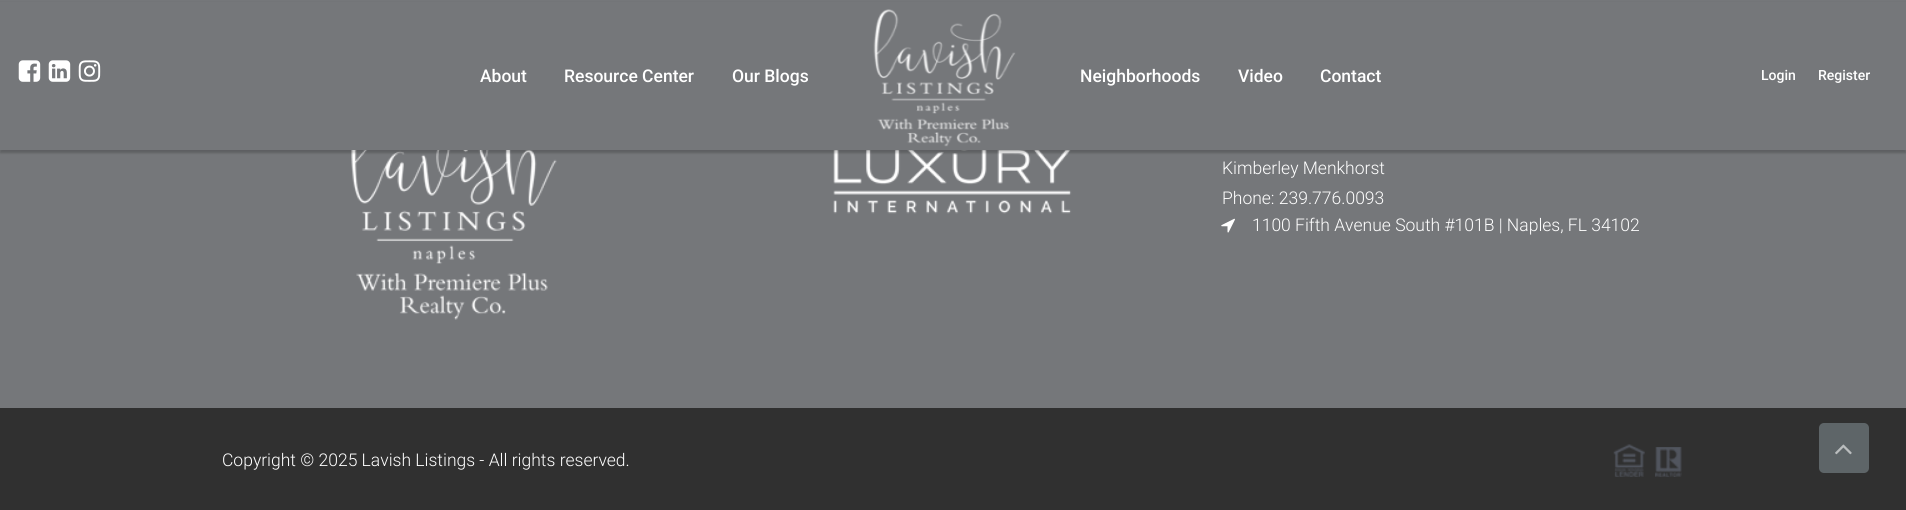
import math
import cairo


def round_path(ctx, x, y, w, h, r):
	ctx.new_sub_path()
	for i, (u, v) in enumerate([(x + w - r, y + h - r), (x + r, y + h - r), (x + r, y + r), (x + w - r, y + r)]):
		ctx.arc(u, v, r, i * math.pi / 2, (i + 1) * math.pi / 2)
	ctx.close_path()

def blur_box(ctx, x, y, w, h, r, blur, alpha):
	ctx.push_group_with_content(cairo.CONTENT_ALPHA)
	ctx.set_operator(cairo.OPERATOR_SOURCE)
	for i in range(15, -16, -2):
		e = blur * i / 6
		if min(w, h) + 2 * e > 0:
			ctx.set_source_rgba(0, 0, 0, alpha * math.erfc((i - 1) / 8.5) / 2)
			round_path(ctx, x - e, y - e, w + 2 * e, h + 2 * e, max(0, min(r + e + blur * .6, min(w, h) / 2 + e)))
			ctx.fill()
	ctx.mask(ctx.pop_group())

def paste(ctx, path, x, y, w, h):
	ctx.save()
	ctx.set_source_surface(cairo.ImageSurface.create_from_png(path), x, y)
	ctx.rectangle(x, y, w, h)
	ctx.fill()
	ctx.restore()

def draw(ctx):
	ctx.set_source_rgb(0.459, 0.467, 0.478)
	ctx.paint()
	paste(ctx, 'media/5.png', 351, 150, 206, 170)
	paste(ctx, 'media/6.png', 833, 150, 239, 64)
	ctx.set_source_rgb(0, 0, 0)
	blur_box(ctx, 0, 3, 1906, 150, 0, 1, 0.2)
	ctx.set_source_rgb(0.459, 0.467, 0.478)
	ctx.rectangle(0, 2, 1906, 148)
	ctx.fill()
	paste(ctx, 'media/1.png', 18, 60, 23, 22)
	paste(ctx, 'media/2.png', 48, 60, 23, 22)
	paste(ctx, 'media/3.png', 78, 60, 23, 22)
	ctx.select_font_face('Roboto Medium')
	ctx.set_font_size(17.5)
	ctx.set_source_rgb(1, 1, 1)
	for x, y, s in [
		(480, 82, 'About'),
		(564, 82, 'Resource Center'),
		(732, 82, 'Our Blogs'),
	]:
		ctx.move_to(x, y)
		ctx.show_text(s)
	paste(ctx, 'media/4.png', 873, 9, 143, 138)
	for x, y, s in [
		(1080, 82, 'Neighborhoods'),
		(1238, 82, 'Video'),
		(1320, 82, 'Contact'),
	]:
		ctx.move_to(x, y)
		ctx.show_text(s)
	ctx.set_font_size(14)
	ctx.move_to(1761, 80)
	ctx.show_text('Login')
	ctx.move_to(1818, 80)
	ctx.show_text('Register')
	ctx.select_font_face('Roboto Light')
	ctx.set_font_size(17.5)
	ctx.move_to(1222, 174)
	ctx.show_text('Kimberley Menkhorst')
	ctx.move_to(1222, 204)
	ctx.show_text('Phone: 239.776.0093')
	paste(ctx, 'media/7.png', 1221, 218, 14, 15)
	ctx.move_to(1252, 231)
	ctx.show_text('1100 Fifth Avenue South #101B | Naples, FL 34102')
	ctx.set_source_rgb(0.188, 0.188, 0.188)
	ctx.rectangle(0, 408, 1906, 102)
	ctx.fill()
	ctx.set_source_rgb(1, 1, 1)
	ctx.move_to(222, 466)
	ctx.show_text('Copyright © 2025 Lavish Listings - All rights reserved.')
	paste(ctx, 'media/8.png', 1613, 444, 32, 33)
	paste(ctx, 'media/9.png', 1655, 447, 27, 30)
	ctx.set_source_rgb(0.369, 0.396, 0.408)
	round_path(ctx, 1819, 423, 50, 50, 5)
	ctx.fill()
	paste(ctx, 'media/10.png', 1835, 444, 17, 11)


surface = cairo.ImageSurface(cairo.FORMAT_RGB24, 1906, 510)
ctx = cairo.Context(surface)
options = cairo.FontOptions()
options.set_hint_metrics(cairo.HINT_METRICS_OFF)
options.set_hint_style(cairo.HINT_STYLE_NONE)
ctx.set_font_options(options)
ctx.set_miter_limit(4)
draw(ctx)
surface.write_to_png('image.png')
